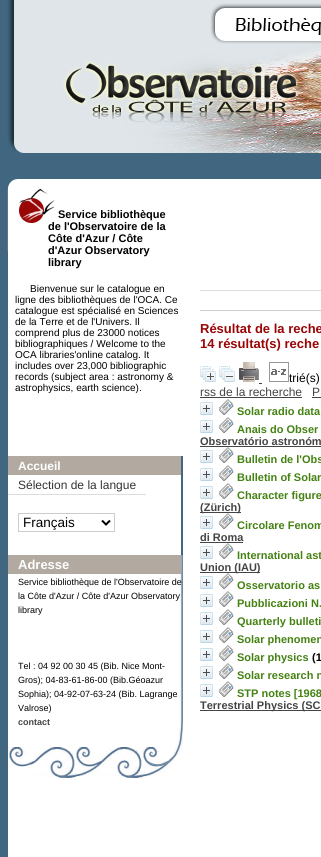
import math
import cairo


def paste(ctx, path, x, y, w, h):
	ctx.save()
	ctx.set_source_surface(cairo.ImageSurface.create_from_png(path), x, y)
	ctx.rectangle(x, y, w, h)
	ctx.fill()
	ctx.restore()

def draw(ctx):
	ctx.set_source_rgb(1, 1, 1)
	ctx.paint()
	ctx.set_source_rgb(0.251, 0.404, 0.498)
	ctx.rectangle(0, 0, 8, 857)
	ctx.fill()
	paste(ctx, 'media/3.png', 7, 0, 314, 252)
	paste(ctx, 'media/1.png', 19, 188, 36, 35)
	ctx.select_font_face('Liberation Sans', cairo.FONT_SLANT_NORMAL, cairo.FONT_WEIGHT_BOLD)
	ctx.set_font_size(11)
	ctx.set_source_rgb(0, 0, 0)
	for x, y, s in [
		(58, 218, 'Service bibliothèque'),
		(48, 230, 'de l\'Observatoire de la'),
		(48, 242, 'Côte d\'Azur / Côte'),
		(48, 254, 'd\'Azur Observatory'),
		(48, 266, 'library'),
	]:
		ctx.move_to(x, y)
		ctx.show_text(s)
	ctx.select_font_face('Liberation Sans')
	ctx.set_font_size(10)
	for x, y, s in [
		(30, 292, 'Bienvenue sur le catalogue en'),
		(15, 303, 'ligne des bibliothèques de l\'OCA. Ce'),
		(15, 314, 'catalogue est spécialisé en Sciences'),
		(15, 325, 'de la Terre et de l\'Univers. Il'),
		(15, 336, 'comprend plus de 23000 notices'),
		(15, 347, 'bibliographiques / Welcome to the'),
		(15, 358, 'OCA libraries\'online catalog. It'),
		(15, 369, 'includes over 23,000 bibliographic'),
		(15, 380, 'records (subject area : astronomy &'),
		(15, 391, 'astrophysics, earth science).'),
	]:
		ctx.move_to(x, y)
		ctx.show_text(s)
	ctx.set_source_rgb(0.251, 0.404, 0.498)
	ctx.rectangle(181, 456, 2, 99)
	ctx.fill()
	ctx.set_source_rgb(0.698, 0.667, 0.631)
	ctx.rectangle(8, 456, 173, 19)
	ctx.fill()
	ctx.select_font_face('Liberation Sans', cairo.FONT_SLANT_NORMAL, cairo.FONT_WEIGHT_BOLD)
	ctx.set_font_size(12)
	ctx.set_source_rgb(1, 1, 1)
	ctx.move_to(18, 470)
	ctx.show_text('Accueil')
	ctx.set_source_rgb(0.867, 0.867, 0.867)
	ctx.rectangle(8, 494, 138, 1)
	ctx.fill()
	ctx.select_font_face('Liberation Sans')
	ctx.set_source_rgb(0.2, 0.2, 0.2)
	ctx.move_to(18, 489)
	ctx.show_text('Sélection de la langue')
	ctx.rectangle(18.5, 513.5, 96, 18)
	ctx.set_source_rgb(0.8, 0.8, 0.8)
	ctx.set_line_width(1)
	ctx.stroke()
	ctx.new_path()
	ctx.move_to(102, 520.5)
	ctx.line_to(106, 524.5)
	ctx.line_to(110, 520.5)
	ctx.set_source_rgb(0, 0, 0)
	ctx.set_line_width(2)
	ctx.stroke()
	ctx.set_font_size(13.5)
	ctx.move_to(23, 527)
	ctx.show_text('Français')
	paste(ctx, 'media/2.png', 8, 555, 175, 223)
	ctx.set_source_rgb(0.698, 0.667, 0.631)
	ctx.rectangle(8, 555, 173, 19)
	ctx.fill()
	ctx.select_font_face('Liberation Sans', cairo.FONT_SLANT_NORMAL, cairo.FONT_WEIGHT_BOLD)
	ctx.set_font_size(13)
	ctx.set_source_rgb(1, 1, 1)
	ctx.move_to(18, 569)
	ctx.show_text('Adresse')
	ctx.select_font_face('Liberation Sans')
	ctx.set_font_size(9)
	ctx.set_source_rgb(0, 0, 0)
	for x, y, s in [
		(18, 585, 'Service bibliothèque de l\'Observatoire de'),
		(18, 599, 'la Côte d\'Azur / Côte d\'Azur Observatory'),
		(18, 613, 'library'),
		(18, 669, 'Tel : 04 92 00 30 45 (Bib. Nice Mont-'),
		(18, 683, 'Gros); 04-83-61-86-00 (Bib.Géoazur'),
		(18, 697, 'Sophia); 04-92-07-63-24 (Bib. Lagrange'),
		(18, 711, 'Valrose)'),
	]:
		ctx.move_to(x, y)
		ctx.show_text(s)
	ctx.select_font_face('Liberation Sans', cairo.FONT_SLANT_NORMAL, cairo.FONT_WEIGHT_BOLD)
	ctx.set_source_rgb(0.267, 0.267, 0.267)
	ctx.move_to(18, 725)
	ctx.show_text('contact')
	ctx.set_source_rgb(0.867, 0.867, 0.867)
	ctx.rectangle(200, 290, 121, 1)
	ctx.fill()
	ctx.set_source_rgb(0.8, 0.8, 0.8)
	ctx.rectangle(200, 310, 121, 1)
	ctx.fill()
	ctx.set_font_size(13)
	ctx.set_source_rgb(0.604, 0.02, 0.02)
	ctx.move_to(200, 333)
	ctx.show_text('Résultat de la reche')
	ctx.move_to(200, 348)
	ctx.show_text('14 résultat(s) reche')
	paste(ctx, 'media/4.png', 200, 366, 16, 16)
	paste(ctx, 'media/5.png', 219, 366, 16, 16)
	paste(ctx, 'media/6.png', 239, 362, 20, 20)
	ctx.set_source_rgb(0.267, 0.267, 0.267)
	ctx.rectangle(259, 383, 3, 1)
	ctx.fill()
	paste(ctx, 'media/7.png', 269, 362, 20, 20)
	ctx.select_font_face('Liberation Sans')
	ctx.set_font_size(12)
	ctx.set_source_rgb(0, 0, 0)
	ctx.move_to(289, 382)
	ctx.show_text('trié(s)')
	ctx.set_source_rgb(0.267, 0.267, 0.267)
	ctx.move_to(200, 396)
	ctx.show_text('rss de la recherche')
	ctx.rectangle(200, 397, 102, 1)
	ctx.fill()
	ctx.move_to(312, 396)
	ctx.show_text('P')
	ctx.rectangle(312, 397, 9, 1)
	ctx.fill()
	paste(ctx, 'media/8.png', 200, 402, 13, 13)
	paste(ctx, 'media/9.png', 219, 399, 15, 16)
	ctx.select_font_face('Liberation Sans', cairo.FONT_SLANT_NORMAL, cairo.FONT_WEIGHT_BOLD)
	ctx.set_font_size(11)
	ctx.set_source_rgb(0.267, 0.51, 0.071)
	ctx.move_to(237, 415)
	ctx.show_text('Solar radio data')
	paste(ctx, 'media/8.png', 200, 420, 13, 13)
	paste(ctx, 'media/9.png', 219, 417, 15, 16)
	ctx.move_to(237, 433)
	ctx.show_text('Anais do Obser')
	ctx.set_source_rgb(0.267, 0.267, 0.267)
	ctx.move_to(200, 445)
	ctx.show_text('Observatório astronóm')
	ctx.rectangle(200, 446, 121, 1)
	ctx.fill()
	paste(ctx, 'media/8.png', 200, 450, 13, 13)
	paste(ctx, 'media/9.png', 219, 447, 15, 16)
	ctx.set_source_rgb(0.267, 0.51, 0.071)
	ctx.move_to(237, 463)
	ctx.show_text('Bulletin de l\'Obs')
	paste(ctx, 'media/8.png', 200, 468, 13, 13)
	paste(ctx, 'media/9.png', 219, 465, 15, 16)
	ctx.move_to(237, 481)
	ctx.show_text('Bulletin of Solar')
	paste(ctx, 'media/8.png', 200, 486, 13, 13)
	paste(ctx, 'media/9.png', 219, 483, 15, 16)
	ctx.move_to(237, 499)
	ctx.show_text('Character figure')
	ctx.set_source_rgb(0.267, 0.267, 0.267)
	ctx.rectangle(200, 512, 41, 1)
	ctx.fill()
	ctx.move_to(200, 511)
	ctx.show_text('(Zürich)')
	paste(ctx, 'media/8.png', 200, 516, 13, 13)
	paste(ctx, 'media/9.png', 219, 513, 15, 16)
	ctx.set_source_rgb(0.267, 0.51, 0.071)
	ctx.move_to(237, 529)
	ctx.show_text('Circolare Fenom')
	ctx.set_source_rgb(0.267, 0.267, 0.267)
	ctx.move_to(200, 541)
	ctx.show_text('di Roma')
	ctx.rectangle(200, 542, 43, 1)
	ctx.fill()
	paste(ctx, 'media/8.png', 200, 546, 13, 13)
	paste(ctx, 'media/9.png', 219, 543, 15, 16)
	ctx.set_source_rgb(0.267, 0.51, 0.071)
	ctx.move_to(237, 559)
	ctx.show_text('International ast')
	ctx.set_source_rgb(0.267, 0.267, 0.267)
	ctx.rectangle(200, 572, 60, 1)
	ctx.fill()
	ctx.move_to(200, 571)
	ctx.show_text('Union (IAU)')
	paste(ctx, 'media/8.png', 200, 576, 13, 13)
	paste(ctx, 'media/9.png', 219, 573, 15, 16)
	ctx.set_source_rgb(0.267, 0.51, 0.071)
	ctx.move_to(237, 589)
	ctx.show_text('Osservatorio as')
	paste(ctx, 'media/8.png', 200, 594, 13, 13)
	paste(ctx, 'media/9.png', 219, 591, 15, 16)
	ctx.move_to(237, 607)
	ctx.show_text('Pubblicazioni N.')
	paste(ctx, 'media/8.png', 200, 612, 13, 13)
	paste(ctx, 'media/9.png', 219, 609, 15, 16)
	ctx.move_to(237, 625)
	ctx.show_text('Quarterly bulleti')
	paste(ctx, 'media/8.png', 200, 630, 13, 13)
	paste(ctx, 'media/9.png', 219, 627, 15, 16)
	ctx.move_to(237, 643)
	ctx.show_text('Solar phenomen')
	paste(ctx, 'media/8.png', 200, 648, 13, 13)
	paste(ctx, 'media/9.png', 219, 645, 15, 16)
	ctx.move_to(237, 661)
	ctx.show_text('Solar physics')
	ctx.set_source_rgb(0, 0, 0)
	ctx.move_to(312, 661)
	ctx.show_text('(1')
	paste(ctx, 'media/8.png', 200, 666, 13, 13)
	paste(ctx, 'media/9.png', 219, 663, 15, 16)
	ctx.set_source_rgb(0.267, 0.51, 0.071)
	ctx.move_to(237, 679)
	ctx.show_text('Solar research n')
	paste(ctx, 'media/8.png', 200, 684, 13, 13)
	paste(ctx, 'media/9.png', 219, 681, 15, 16)
	ctx.move_to(237, 697)
	ctx.show_text('STP notes [1968')
	ctx.set_source_rgb(0.267, 0.267, 0.267)
	ctx.rectangle(200, 710, 121, 1)
	ctx.fill()
	ctx.move_to(200, 709)
	ctx.show_text('Terrestrial Physics (SC')


surface = cairo.ImageSurface(cairo.FORMAT_RGB24, 321, 857)
ctx = cairo.Context(surface)
options = cairo.FontOptions()
options.set_hint_metrics(cairo.HINT_METRICS_OFF)
options.set_hint_style(cairo.HINT_STYLE_NONE)
ctx.set_font_options(options)
ctx.set_miter_limit(4)
draw(ctx)
surface.write_to_png('image.png')
